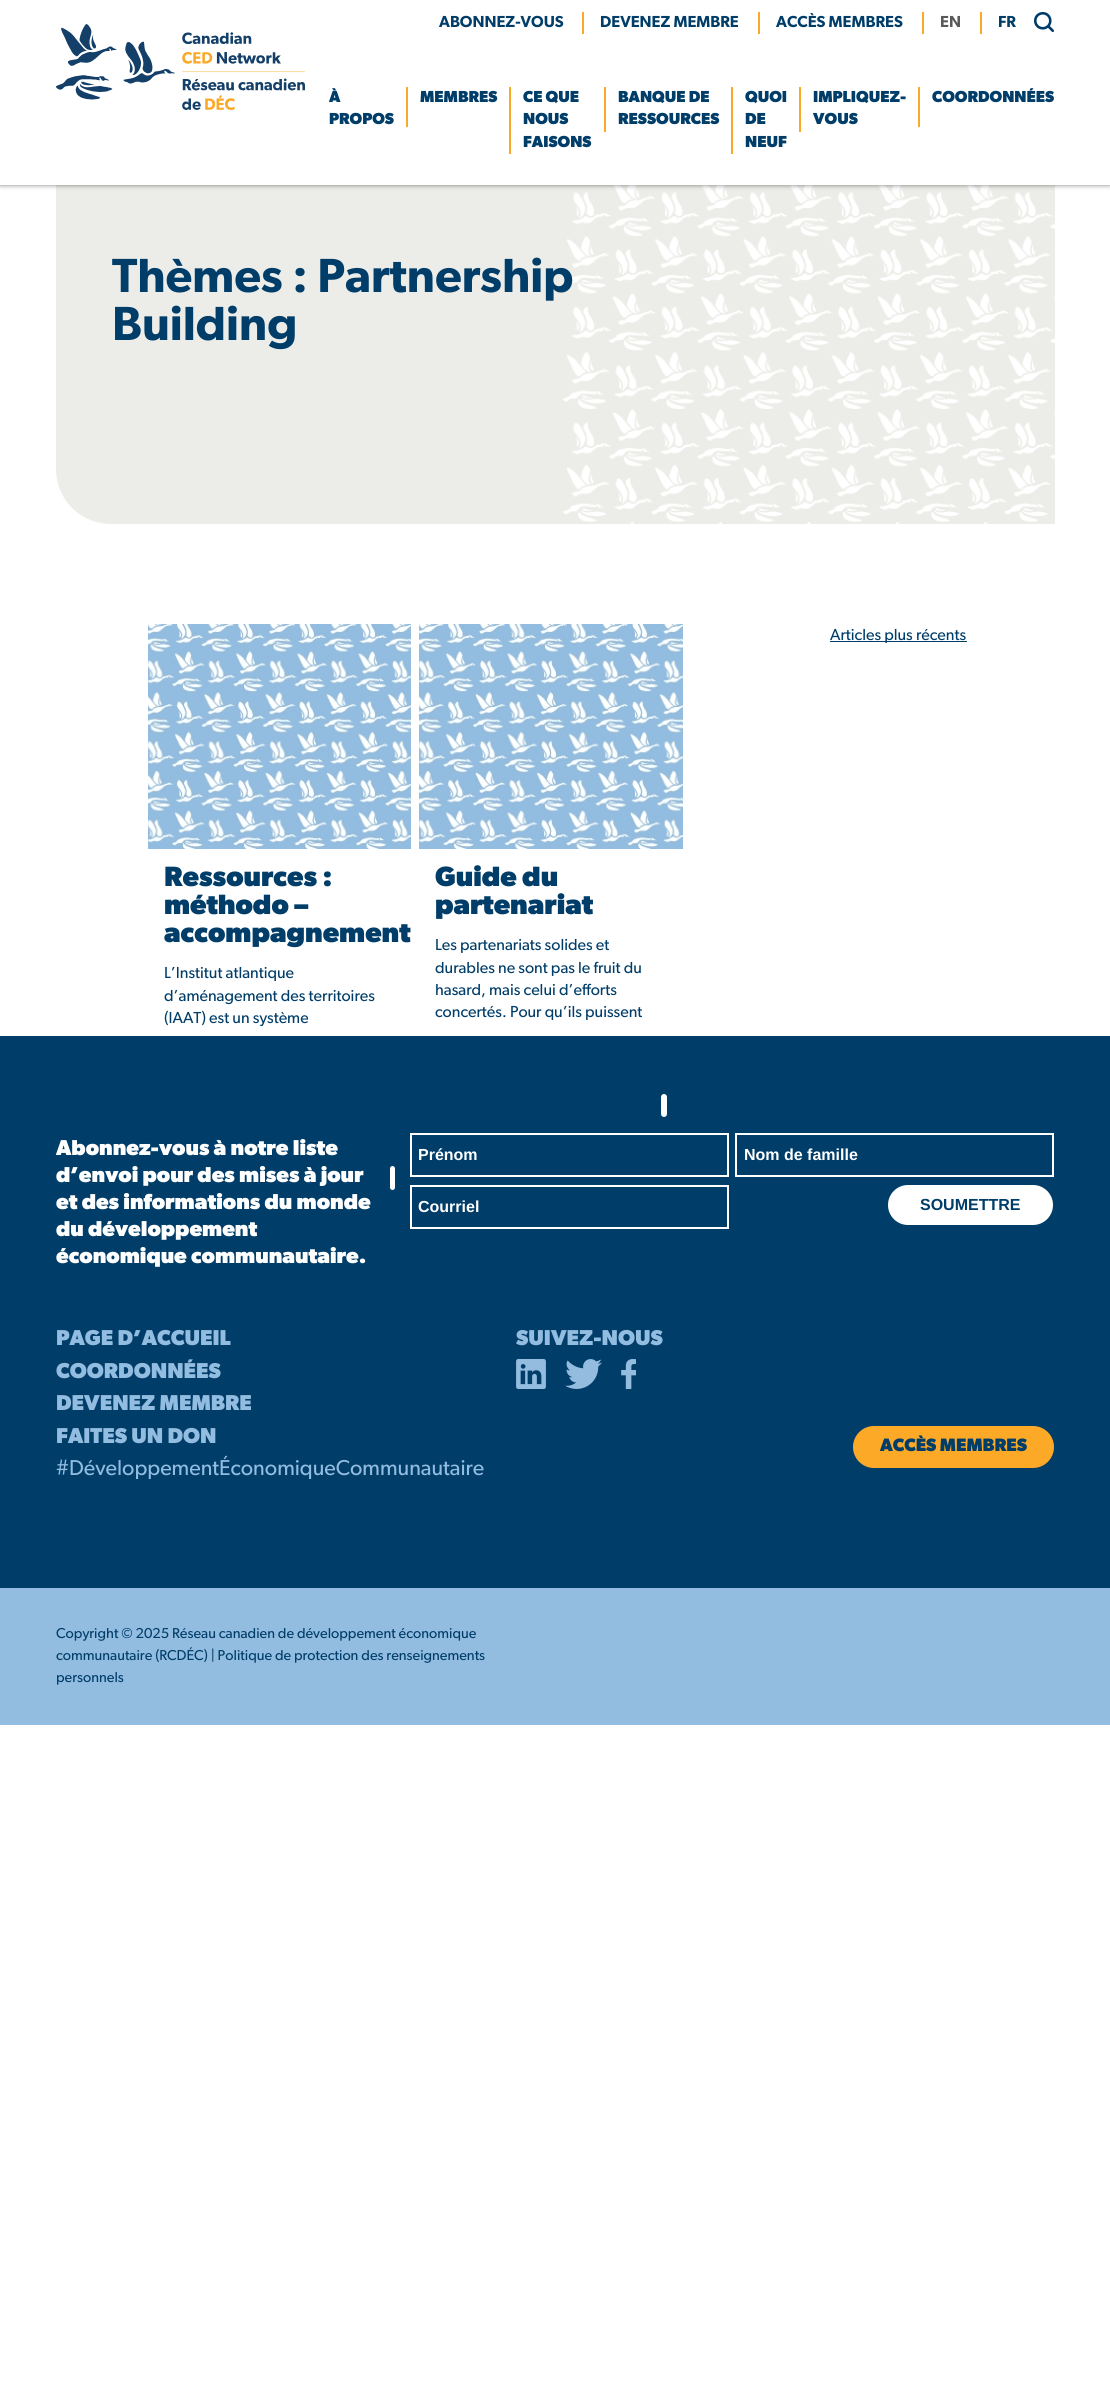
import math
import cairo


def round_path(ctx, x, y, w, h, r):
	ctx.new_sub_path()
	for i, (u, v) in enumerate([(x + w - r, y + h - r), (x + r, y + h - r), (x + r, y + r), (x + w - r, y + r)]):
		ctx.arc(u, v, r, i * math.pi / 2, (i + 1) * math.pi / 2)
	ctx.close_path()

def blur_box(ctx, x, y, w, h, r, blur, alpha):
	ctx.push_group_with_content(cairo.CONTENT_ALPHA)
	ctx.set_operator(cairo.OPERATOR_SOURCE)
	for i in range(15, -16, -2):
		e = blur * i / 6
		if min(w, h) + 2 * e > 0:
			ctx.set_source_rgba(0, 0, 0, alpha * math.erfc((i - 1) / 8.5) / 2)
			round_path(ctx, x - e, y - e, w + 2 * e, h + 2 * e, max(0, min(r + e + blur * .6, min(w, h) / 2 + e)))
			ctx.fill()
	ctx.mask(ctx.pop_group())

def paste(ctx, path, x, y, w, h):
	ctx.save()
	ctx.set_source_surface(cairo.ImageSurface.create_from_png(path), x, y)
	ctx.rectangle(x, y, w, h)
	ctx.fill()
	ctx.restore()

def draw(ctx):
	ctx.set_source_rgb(1, 1, 1)
	ctx.paint()
	ctx.set_source_rgb(0.922, 0.922, 0.91)
	ctx.new_path()
	ctx.move_to(56, 124)
	ctx.line_to(1055, 124)
	ctx.line_to(1055, 524)
	ctx.line_to(111, 524)
	ctx.curve_to(80.5, 524, 56, 499.5, 56, 469)
	ctx.close_path()
	ctx.fill()
	paste(ctx, 'media/3.png', 563, 185, 492, 339)
	ctx.set_source_rgb(0, 0, 0)
	blur_box(ctx, 0, 0, 1110, 185, 0, 2.5, 0.5)
	ctx.set_source_rgb(1, 1, 1)
	ctx.rectangle(0, 0, 1110, 185)
	ctx.fill()
	paste(ctx, 'media/1.png', 56, 24, 249, 86)
	ctx.select_font_face('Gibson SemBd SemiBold')
	ctx.set_font_size(16)
	ctx.set_source_rgb(0, 0.239, 0.412)
	ctx.move_to(439, 27)
	ctx.show_text('ABONNEZ-VOUS')
	ctx.set_source_rgb(0.988, 0.663, 0.153)
	ctx.rectangle(582, 12, 2, 22)
	ctx.fill()
	ctx.set_source_rgb(0, 0.239, 0.412)
	ctx.move_to(600, 27)
	ctx.show_text('DEVENEZ MEMBRE')
	ctx.set_source_rgb(0.988, 0.663, 0.153)
	ctx.rectangle(758, 12, 2, 22)
	ctx.fill()
	ctx.set_source_rgb(0, 0.239, 0.412)
	ctx.move_to(776, 27)
	ctx.show_text('ACCÈS MEMBRES')
	ctx.set_source_rgb(0.988, 0.663, 0.153)
	ctx.rectangle(922, 12, 2, 22)
	ctx.fill()
	ctx.set_source_rgb(0.349, 0.349, 0.349)
	ctx.move_to(940, 27)
	ctx.show_text('EN')
	ctx.set_source_rgb(0.988, 0.663, 0.153)
	ctx.rectangle(980, 12, 2, 22)
	ctx.fill()
	ctx.set_source_rgb(0, 0.239, 0.412)
	ctx.move_to(998, 27)
	ctx.show_text('FR')
	paste(ctx, 'media/2.png', 1034, 12, 20, 20)
	ctx.select_font_face('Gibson', cairo.FONT_SLANT_NORMAL, cairo.FONT_WEIGHT_BOLD)
	ctx.move_to(329, 102)
	ctx.show_text('À')
	ctx.move_to(329, 124)
	ctx.show_text('PROPOS')
	ctx.set_source_rgb(0.988, 0.663, 0.153)
	ctx.rectangle(406, 87, 2, 40)
	ctx.fill()
	ctx.set_source_rgb(0, 0.239, 0.412)
	ctx.move_to(420, 102)
	ctx.show_text('MEMBRES')
	ctx.set_source_rgb(0.988, 0.663, 0.153)
	ctx.rectangle(509, 87, 2, 67)
	ctx.fill()
	ctx.set_source_rgb(0, 0.239, 0.412)
	for x, y, s in [
		(523, 102, 'CE QUE'),
		(523, 124, 'NOUS'),
		(523, 147, 'FAISONS'),
	]:
		ctx.move_to(x, y)
		ctx.show_text(s)
	ctx.set_source_rgb(0.988, 0.663, 0.153)
	ctx.rectangle(604, 87, 2, 45)
	ctx.fill()
	ctx.set_source_rgb(0, 0.239, 0.412)
	ctx.move_to(618, 102)
	ctx.show_text('BANQUE DE')
	ctx.move_to(618, 124)
	ctx.show_text('RESSOURCES')
	ctx.set_source_rgb(0.988, 0.663, 0.153)
	ctx.rectangle(731, 87, 2, 67)
	ctx.fill()
	ctx.set_source_rgb(0, 0.239, 0.412)
	for x, y, s in [
		(745, 102, 'QUOI'),
		(745, 124, 'DE'),
		(745, 147, 'NEUF'),
	]:
		ctx.move_to(x, y)
		ctx.show_text(s)
	ctx.set_source_rgb(0.988, 0.663, 0.153)
	ctx.rectangle(799, 87, 2, 45)
	ctx.fill()
	ctx.set_source_rgb(0, 0.239, 0.412)
	ctx.move_to(813, 102)
	ctx.show_text('IMPLIQUEZ-')
	ctx.move_to(813, 124)
	ctx.show_text('VOUS')
	ctx.set_source_rgb(0.988, 0.663, 0.153)
	ctx.rectangle(918, 87, 2, 40)
	ctx.fill()
	ctx.set_source_rgb(0, 0.239, 0.412)
	ctx.move_to(932, 102)
	ctx.show_text('COORDONNÉES')
	ctx.select_font_face('Gibson SemBd SemiBold')
	ctx.set_font_size(48)
	ctx.move_to(112, 292)
	ctx.show_text('Thèmes : Partnership')
	ctx.move_to(112, 340)
	ctx.show_text('Building')
	ctx.rectangle(830, 641, 137, 1)
	ctx.fill()
	ctx.select_font_face('Gibson')
	ctx.set_font_size(16)
	ctx.move_to(830, 640)
	ctx.show_text('Articles plus récents')
	paste(ctx, 'media/4.png', 148, 624, 263, 225)
	ctx.select_font_face('Gibson', cairo.FONT_SLANT_NORMAL, cairo.FONT_WEIGHT_BOLD)
	ctx.set_font_size(28)
	for x, y, s in [
		(164, 886, 'Ressources :'),
		(164, 914, 'méthodo –'),
		(164, 942, 'accompagnement'),
	]:
		ctx.move_to(x, y)
		ctx.show_text(s)
	ctx.select_font_face('Gibson')
	ctx.set_font_size(16)
	for x, y, s in [
		(164, 978, 'L’Institut atlantique'),
		(164, 1001, 'd’aménagement des territoires'),
		(164, 1023, '(IAAT) est un système'),
	]:
		ctx.move_to(x, y)
		ctx.show_text(s)
	ctx.rectangle(0, 1036, 1110, 552)
	ctx.fill()
	ctx.set_source_rgb(1, 1, 1)
	round_path(ctx, 390, 1166, 5, 24, 2.5)
	ctx.fill()
	paste(ctx, 'media/5.png', 419, 624, 264, 225)
	ctx.select_font_face('Gibson', cairo.FONT_SLANT_NORMAL, cairo.FONT_WEIGHT_BOLD)
	ctx.set_font_size(28)
	ctx.set_source_rgb(0, 0.239, 0.412)
	ctx.move_to(435, 886)
	ctx.show_text('Guide du')
	ctx.move_to(435, 914)
	ctx.show_text('partenariat')
	ctx.select_font_face('Gibson')
	ctx.set_font_size(16)
	for x, y, s in [
		(435, 950, 'Les partenariats solides et'),
		(435, 973, 'durables ne sont pas le fruit du'),
		(435, 995, 'hasard, mais celui d’efforts'),
		(435, 1017, 'concertés. Pour qu’ils puissent'),
	]:
		ctx.move_to(x, y)
		ctx.show_text(s)
	ctx.set_source_rgb(1, 1, 1)
	round_path(ctx, 661, 1094, 6, 23, 3)
	ctx.fill()
	ctx.select_font_face('Gibson', cairo.FONT_SLANT_NORMAL, cairo.FONT_WEIGHT_BOLD)
	ctx.set_font_size(21.6)
	for x, y, s in [
		(56, 1155, 'Abonnez-vous à notre liste'),
		(56, 1182, 'd’envoi pour des mises à jour'),
		(56, 1209, 'et des informations du monde'),
		(56, 1236, 'du développement'),
		(56, 1263, 'économique communautaire.'),
	]:
		ctx.move_to(x, y)
		ctx.show_text(s)
	ctx.rectangle(411, 1134, 317, 42)
	ctx.stroke()
	ctx.select_font_face('Liberation Sans', cairo.FONT_SLANT_NORMAL, cairo.FONT_WEIGHT_BOLD)
	ctx.set_font_size(16)
	ctx.move_to(418, 1160)
	ctx.show_text('Prénom')
	ctx.rectangle(736, 1134, 317, 42)
	ctx.stroke()
	ctx.move_to(744, 1160)
	ctx.show_text('Nom de famille')
	ctx.rectangle(411, 1186, 317, 42)
	ctx.stroke()
	ctx.move_to(418, 1212)
	ctx.show_text('Courriel')
	round_path(ctx, 888, 1185, 165, 40, 20)
	ctx.fill()
	ctx.set_source_rgb(0, 0.239, 0.412)
	ctx.move_to(920, 1210)
	ctx.show_text('SOUMETTRE')
	ctx.select_font_face('Gibson', cairo.FONT_SLANT_NORMAL, cairo.FONT_WEIGHT_BOLD)
	ctx.set_font_size(21.6)
	ctx.set_source_rgb(0.573, 0.737, 0.878)
	for x, y, s in [
		(56, 1345, 'PAGE D’ACCUEIL'),
		(56, 1378, 'COORDONNÉES'),
		(56, 1410, 'DEVENEZ MEMBRE'),
		(56, 1443, 'FAITES UN DON'),
	]:
		ctx.move_to(x, y)
		ctx.show_text(s)
	ctx.select_font_face('Gibson')
	ctx.move_to(56, 1475)
	ctx.show_text('#DéveloppementÉconomiqueCommunautaire')
	ctx.select_font_face('Gibson', cairo.FONT_SLANT_NORMAL, cairo.FONT_WEIGHT_BOLD)
	ctx.move_to(516, 1345)
	ctx.show_text('SUIVEZ-NOUS')
	paste(ctx, 'media/6.png', 516, 1359, 30, 30)
	paste(ctx, 'media/7.png', 565, 1359, 37, 30)
	paste(ctx, 'media/8.png', 621, 1359, 15, 30)
	ctx.set_source_rgb(0.988, 0.663, 0.153)
	round_path(ctx, 853, 1426, 201, 42, 21)
	ctx.fill()
	ctx.set_font_size(18)
	ctx.set_source_rgb(0, 0.239, 0.412)
	ctx.move_to(880, 1451)
	ctx.show_text('ACCÈS MEMBRES')
	ctx.set_source_rgb(0.573, 0.737, 0.878)
	ctx.rectangle(0, 1588, 1110, 137)
	ctx.fill()
	ctx.select_font_face('Gibson')
	ctx.set_font_size(14.4)
	ctx.set_source_rgb(0, 0.239, 0.412)
	for x, y, s in [
		(56, 1638, 'Copyright © 2025 Réseau canadien de développement économique'),
		(56, 1660, 'communautaire (RCDÉC) | Politique de protection des renseignements'),
		(56, 1682, 'personnels'),
	]:
		ctx.move_to(x, y)
		ctx.show_text(s)


surface = cairo.ImageSurface(cairo.FORMAT_RGB24, 1110, 2384)
ctx = cairo.Context(surface)
options = cairo.FontOptions()
options.set_hint_metrics(cairo.HINT_METRICS_OFF)
options.set_hint_style(cairo.HINT_STYLE_NONE)
ctx.set_font_options(options)
ctx.set_miter_limit(4)
draw(ctx)
surface.write_to_png('image.png')
